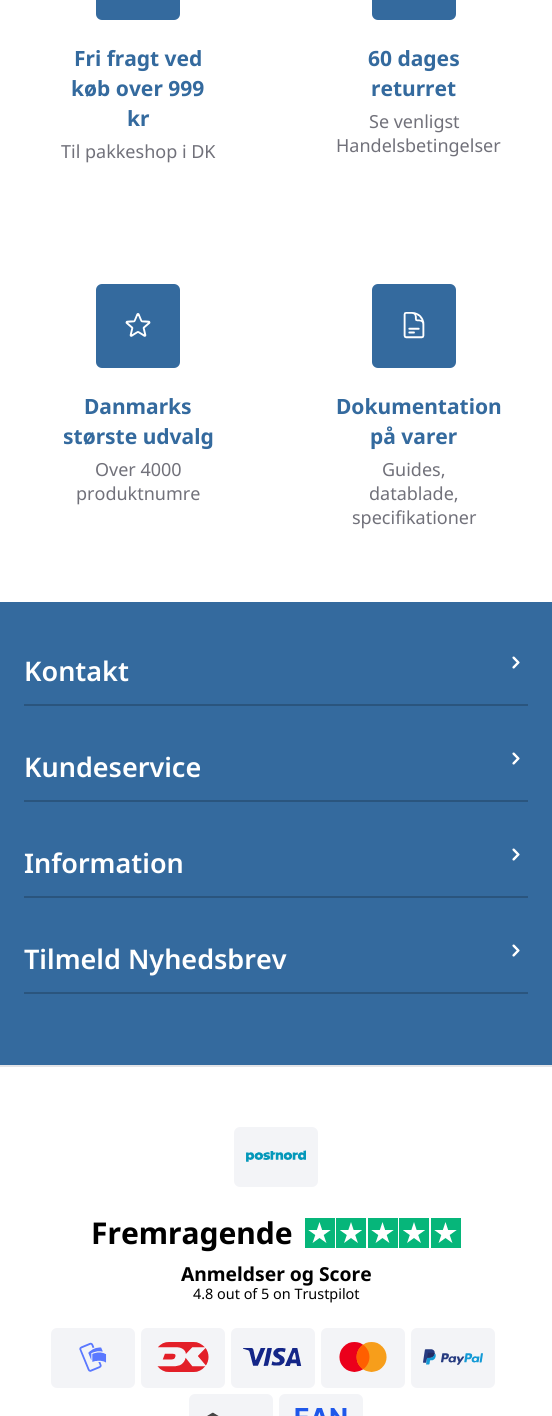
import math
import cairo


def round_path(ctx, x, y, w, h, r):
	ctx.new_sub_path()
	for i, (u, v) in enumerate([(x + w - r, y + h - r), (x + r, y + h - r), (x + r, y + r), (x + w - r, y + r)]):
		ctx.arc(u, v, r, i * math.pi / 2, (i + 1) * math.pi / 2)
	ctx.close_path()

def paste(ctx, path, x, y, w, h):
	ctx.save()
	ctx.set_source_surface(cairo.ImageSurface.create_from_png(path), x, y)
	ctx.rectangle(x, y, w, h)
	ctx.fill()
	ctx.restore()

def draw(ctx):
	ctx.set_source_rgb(1, 1, 1)
	ctx.paint()
	ctx.set_source_rgb(0.204, 0.416, 0.62)
	round_path(ctx, 96, -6, 84, 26, 6)
	ctx.fill()
	ctx.select_font_face('Noto Sans', cairo.FONT_SLANT_NORMAL, cairo.FONT_WEIGHT_BOLD)
	ctx.set_font_size(21)
	for x, y, s in [
		(74, 66, 'Fri fragt ved'),
		(71, 96, 'køb over 999'),
		(127, 126, 'kr'),
	]:
		ctx.move_to(x, y)
		ctx.show_text(s)
	ctx.select_font_face('Noto Sans')
	ctx.set_font_size(18)
	ctx.set_source_rgb(0.443, 0.443, 0.478)
	ctx.move_to(61, 158)
	ctx.show_text('Til pakkeshop i DK')
	ctx.set_source_rgb(0.204, 0.416, 0.62)
	round_path(ctx, 372, -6, 84, 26, 6)
	ctx.fill()
	ctx.select_font_face('Noto Sans', cairo.FONT_SLANT_NORMAL, cairo.FONT_WEIGHT_BOLD)
	ctx.set_font_size(21)
	ctx.move_to(368, 66)
	ctx.show_text('60 dages')
	ctx.move_to(371, 96)
	ctx.show_text('returret')
	ctx.select_font_face('Noto Sans')
	ctx.set_font_size(18)
	ctx.set_source_rgb(0.443, 0.443, 0.478)
	ctx.move_to(369, 128)
	ctx.show_text('Se venligst')
	ctx.move_to(336, 152)
	ctx.show_text('Handelsbetingelser')
	ctx.set_source_rgb(0.204, 0.416, 0.62)
	round_path(ctx, 96, 284, 84, 84, 6)
	ctx.fill()
	paste(ctx, 'media/1.png', 125, 313, 26, 24)
	ctx.select_font_face('Noto Sans', cairo.FONT_SLANT_NORMAL, cairo.FONT_WEIGHT_BOLD)
	ctx.set_font_size(21)
	ctx.move_to(84, 414)
	ctx.show_text('Danmarks')
	ctx.move_to(63, 444)
	ctx.show_text('største udvalg')
	ctx.select_font_face('Noto Sans')
	ctx.set_font_size(18)
	ctx.set_source_rgb(0.443, 0.443, 0.478)
	ctx.move_to(95, 476)
	ctx.show_text('Over 4000')
	ctx.move_to(76, 500)
	ctx.show_text('produktnumre')
	ctx.set_source_rgb(0.204, 0.416, 0.62)
	round_path(ctx, 372, 284, 84, 84, 6)
	ctx.fill()
	paste(ctx, 'media/2.png', 403, 312, 22, 27)
	ctx.select_font_face('Noto Sans', cairo.FONT_SLANT_NORMAL, cairo.FONT_WEIGHT_BOLD)
	ctx.set_font_size(21)
	ctx.move_to(336, 414)
	ctx.show_text('Dokumentation')
	ctx.move_to(370, 444)
	ctx.show_text('på varer')
	ctx.select_font_face('Noto Sans')
	ctx.set_font_size(18)
	ctx.set_source_rgb(0.443, 0.443, 0.478)
	for x, y, s in [
		(382, 476, 'Guides,'),
		(369, 500, 'datablade,'),
		(352, 524, 'specifikationer'),
	]:
		ctx.move_to(x, y)
		ctx.show_text(s)
	ctx.set_source_rgb(0.204, 0.416, 0.62)
	ctx.rectangle(0, 602, 552, 463)
	ctx.fill()
	ctx.set_source_rgb(0.165, 0.333, 0.494)
	ctx.rectangle(24, 704, 504, 2)
	ctx.fill()
	ctx.select_font_face('Noto Sans SemiBold')
	ctx.set_font_size(27)
	ctx.set_source_rgb(1, 1, 1)
	ctx.move_to(24, 681)
	ctx.show_text('Kontakt')
	paste(ctx, 'media/3.png', 512, 656, 8, 13)
	ctx.set_source_rgb(0.165, 0.333, 0.494)
	ctx.rectangle(24, 800, 504, 2)
	ctx.fill()
	ctx.set_source_rgb(1, 1, 1)
	ctx.move_to(24, 777)
	ctx.show_text('Kundeservice')
	paste(ctx, 'media/3.png', 512, 752, 8, 13)
	ctx.set_source_rgb(0.165, 0.333, 0.494)
	ctx.rectangle(24, 896, 504, 2)
	ctx.fill()
	ctx.set_source_rgb(1, 1, 1)
	ctx.move_to(24, 873)
	ctx.show_text('Information')
	paste(ctx, 'media/3.png', 512, 848, 8, 13)
	ctx.set_source_rgb(0.165, 0.333, 0.494)
	ctx.rectangle(24, 992, 504, 2)
	ctx.fill()
	ctx.set_source_rgb(1, 1, 1)
	ctx.move_to(24, 969)
	ctx.show_text('Tilmeld Nyhedsbrev')
	paste(ctx, 'media/3.png', 512, 944, 8, 13)
	ctx.set_source_rgb(0.894, 0.894, 0.906)
	ctx.rectangle(0, 1065, 552, 2)
	ctx.fill()
	ctx.set_source_rgb(0.953, 0.957, 0.965)
	round_path(ctx, 234, 1127, 84, 60, 6)
	ctx.fill()
	paste(ctx, 'media/4.png', 246, 1150, 60, 12)
	ctx.select_font_face('Noto Sans', cairo.FONT_SLANT_NORMAL, cairo.FONT_WEIGHT_BOLD)
	ctx.set_font_size(30)
	ctx.set_source_rgb(0, 0, 0)
	ctx.move_to(91, 1244)
	ctx.show_text('Fremragende')
	ctx.set_source_rgb(0.027, 0.714, 0.478)
	ctx.rectangle(305, 1218, 30, 30)
	ctx.fill()
	paste(ctx, 'media/5.png', 308, 1222, 23, 21)
	ctx.rectangle(336, 1218, 30, 30)
	ctx.fill()
	paste(ctx, 'media/6.png', 340, 1222, 22, 21)
	ctx.rectangle(368, 1218, 30, 30)
	ctx.fill()
	paste(ctx, 'media/5.png', 371, 1222, 23, 21)
	ctx.rectangle(399, 1218, 30, 30)
	ctx.fill()
	paste(ctx, 'media/6.png', 403, 1222, 22, 21)
	ctx.rectangle(431, 1218, 30, 30)
	ctx.fill()
	paste(ctx, 'media/5.png', 434, 1222, 23, 21)
	ctx.set_font_size(19.25)
	ctx.set_source_rgb(0, 0, 0)
	ctx.move_to(181, 1281)
	ctx.show_text('Anmeldser og Score')
	ctx.select_font_face('Noto Sans')
	ctx.set_font_size(14.4)
	ctx.move_to(193, 1299)
	ctx.show_text('4.8 out of 5 on Trustpilot')
	ctx.set_source_rgb(0.953, 0.957, 0.965)
	round_path(ctx, 51, 1328, 84, 60, 6)
	ctx.fill()
	paste(ctx, 'media/7.png', 79, 1342, 28, 30)
	round_path(ctx, 141, 1328, 84, 60, 6)
	ctx.fill()
	paste(ctx, 'media/8.png', 157, 1342, 52, 30)
	round_path(ctx, 231, 1328, 84, 60, 6)
	ctx.fill()
	paste(ctx, 'media/9.png', 243, 1348, 59, 18)
	round_path(ctx, 321, 1328, 84, 60, 6)
	ctx.fill()
	paste(ctx, 'media/10.png', 339, 1342, 48, 30)
	round_path(ctx, 411, 1328, 84, 60, 6)
	ctx.fill()
	paste(ctx, 'media/11.png', 423, 1349, 60, 16)
	round_path(ctx, 189, 1394, 84, 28, 6)
	ctx.fill()
	paste(ctx, 'media/12.png', 207, 1412, 12, 4)
	round_path(ctx, 279, 1394, 84, 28, 6)
	ctx.fill()
	paste(ctx, 'media/13.png', 295, 1408, 52, 8)


surface = cairo.ImageSurface(cairo.FORMAT_RGB24, 552, 1416)
ctx = cairo.Context(surface)
options = cairo.FontOptions()
options.set_hint_metrics(cairo.HINT_METRICS_OFF)
options.set_hint_style(cairo.HINT_STYLE_NONE)
ctx.set_font_options(options)
ctx.set_miter_limit(4)
draw(ctx)
surface.write_to_png('image.png')
